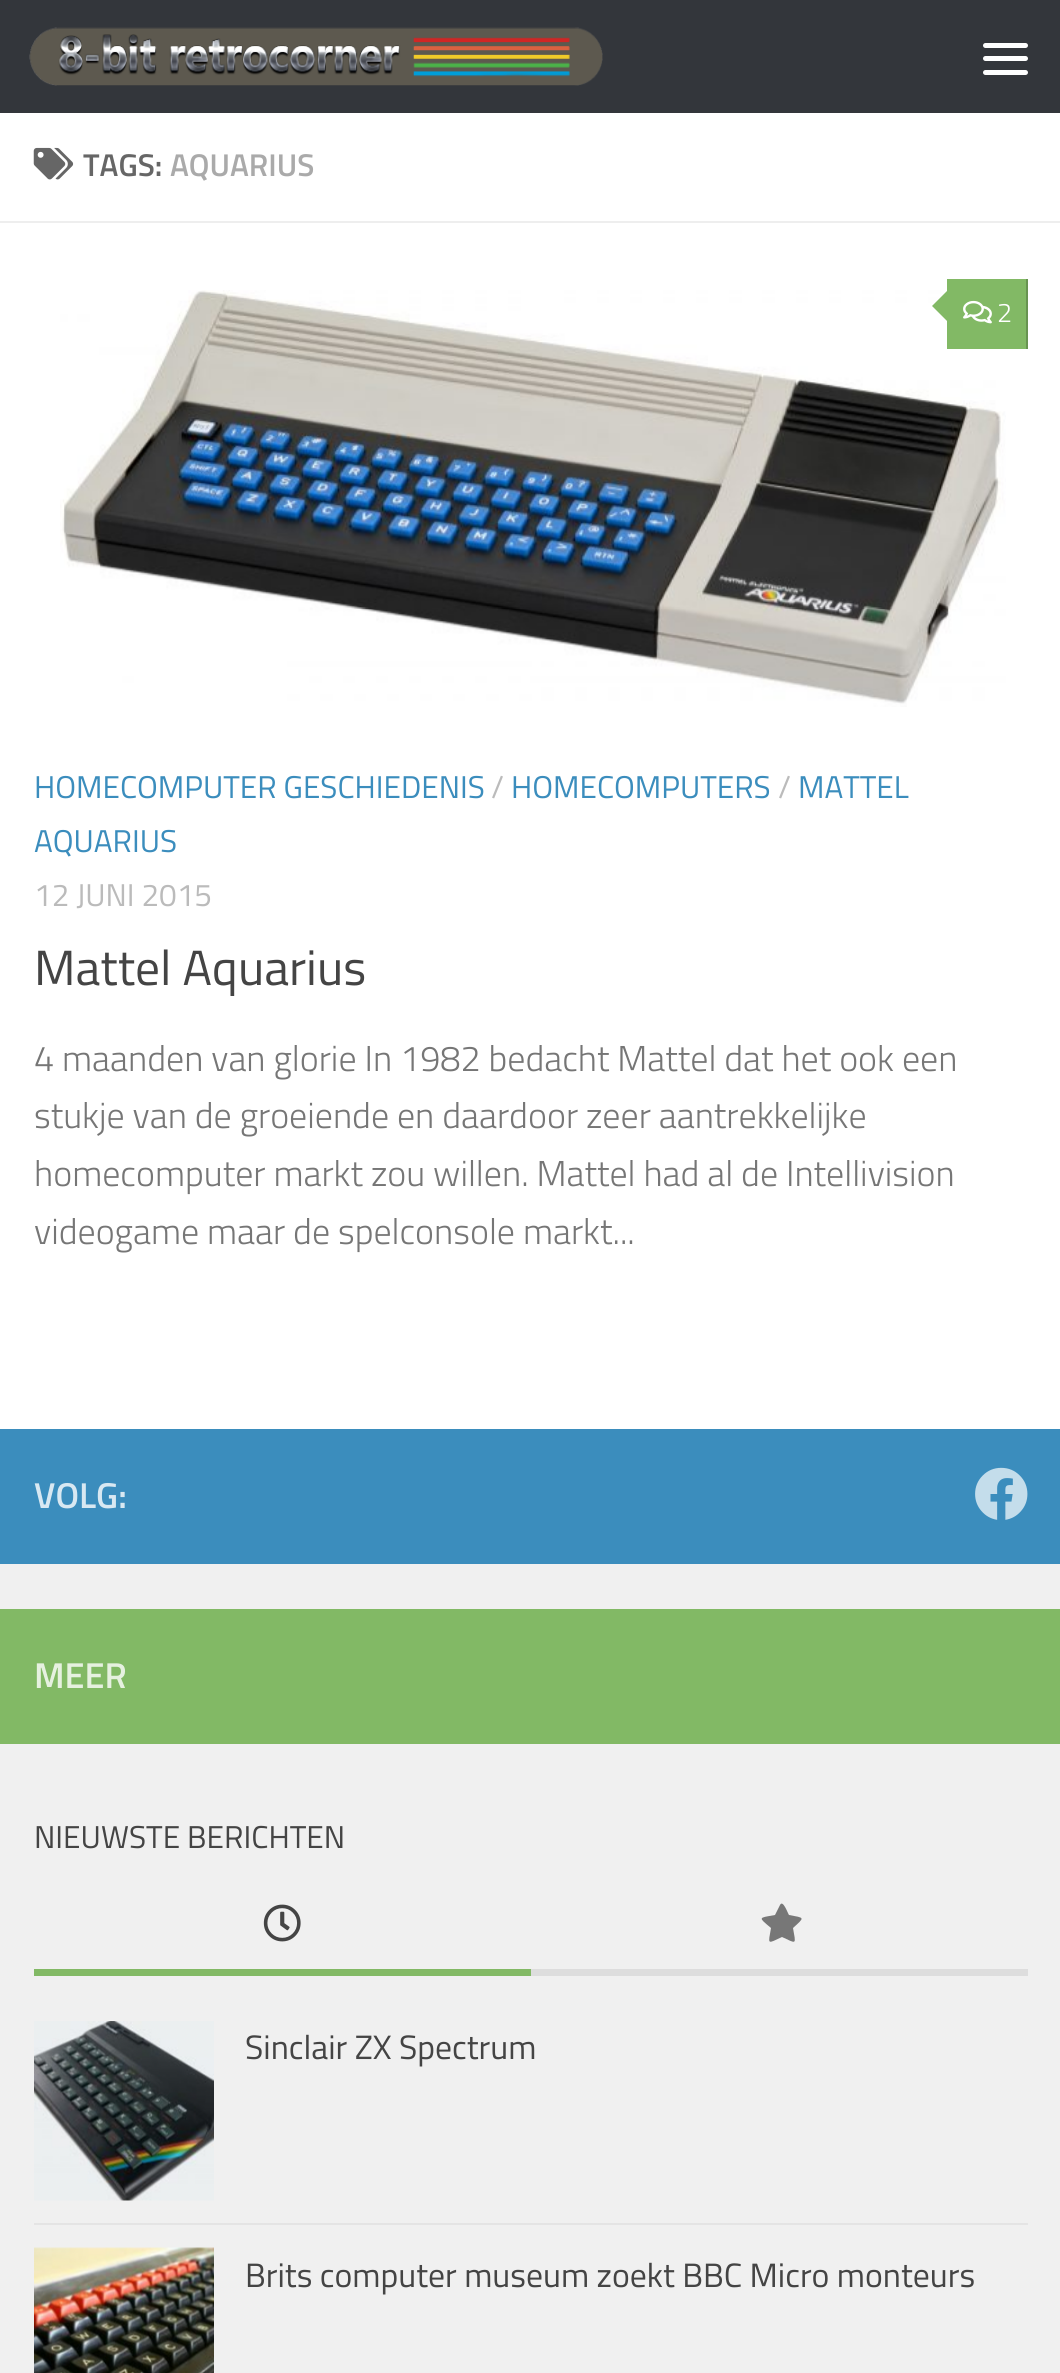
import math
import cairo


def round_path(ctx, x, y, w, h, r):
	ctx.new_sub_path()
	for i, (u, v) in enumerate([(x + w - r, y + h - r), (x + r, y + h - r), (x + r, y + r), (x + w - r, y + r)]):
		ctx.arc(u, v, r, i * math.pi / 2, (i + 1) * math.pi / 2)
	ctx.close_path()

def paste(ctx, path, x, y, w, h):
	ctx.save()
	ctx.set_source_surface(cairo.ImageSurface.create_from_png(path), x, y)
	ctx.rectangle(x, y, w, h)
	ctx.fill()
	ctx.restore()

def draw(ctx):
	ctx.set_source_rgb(1, 1, 1)
	ctx.paint()
	ctx.set_source_rgb(0.2, 0.212, 0.231)
	ctx.rectangle(0, 0, 1060, 113)
	ctx.fill()
	paste(ctx, 'media/1.png', 29, 27, 574, 59)
	ctx.set_source_rgb(1, 1, 1)
	round_path(ctx, 983, 43, 45, 5, 2.5)
	ctx.fill()
	round_path(ctx, 983, 56, 45, 5, 2.5)
	ctx.fill()
	round_path(ctx, 983, 70, 45, 5, 2.5)
	ctx.fill()
	ctx.set_source_rgb(0.933, 0.933, 0.933)
	ctx.rectangle(0, 221, 1060, 2)
	ctx.fill()
	paste(ctx, 'media/2.png', 33, 147, 41, 33)
	ctx.select_font_face('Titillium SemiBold')
	ctx.set_font_size(31.5)
	ctx.set_source_rgb(0.4, 0.4, 0.4)
	ctx.move_to(83, 176)
	ctx.show_text('TAGS:')
	ctx.set_source_rgb(0.667, 0.667, 0.667)
	ctx.move_to(170, 176)
	ctx.show_text('AQUARIUS')
	paste(ctx, 'media/3.png', 60, 290, 946, 417)
	ctx.set_source_rgb(0.51, 0.725, 0.396)
	ctx.rectangle(947, 279, 79, 70)
	ctx.fill()
	ctx.set_source_rgb(0.408, 0.58, 0.318)
	ctx.rectangle(1026, 279, 2, 70)
	ctx.fill()
	ctx.set_source_rgb(0.51, 0.725, 0.396)
	ctx.new_path()
	ctx.move_to(952, 286)
	ctx.line_to(952, 326)
	ctx.line_to(932, 306)
	ctx.close_path()
	ctx.fill()
	paste(ctx, 'media/4.png', 963, 300, 29, 24)
	ctx.select_font_face('Titillium Light')
	ctx.set_font_size(27)
	ctx.set_source_rgb(1, 1, 1)
	ctx.move_to(997, 322)
	ctx.show_text('2')
	ctx.select_font_face('Titillium')
	ctx.set_font_size(31.5)
	ctx.set_source_rgb(0.231, 0.553, 0.741)
	ctx.move_to(34, 798)
	ctx.show_text('HOMECOMPUTER GESCHIEDENIS')
	ctx.set_source_rgb(0.733, 0.733, 0.733)
	ctx.move_to(491, 798)
	ctx.show_text('/')
	ctx.set_source_rgb(0.231, 0.553, 0.741)
	ctx.move_to(511, 798)
	ctx.show_text('HOMECOMPUTERS')
	ctx.set_source_rgb(0.733, 0.733, 0.733)
	ctx.move_to(778, 798)
	ctx.show_text('/')
	ctx.set_source_rgb(0.231, 0.553, 0.741)
	ctx.move_to(798, 798)
	ctx.show_text('MATTEL')
	ctx.move_to(34, 852)
	ctx.show_text('AQUARIUS')
	ctx.set_source_rgb(0.733, 0.733, 0.733)
	ctx.move_to(34, 906)
	ctx.show_text('12 JUNI 2015')
	ctx.set_font_size(49.5)
	ctx.set_source_rgb(0.267, 0.267, 0.267)
	ctx.move_to(34, 985)
	ctx.show_text('Mattel Aquarius')
	ctx.select_font_face('Titillium Light')
	ctx.set_font_size(36)
	ctx.set_source_rgb(0.463, 0.463, 0.463)
	for x, y, s in [
		(34, 1071, '4 maanden van glorie In 1982 bedacht Mattel dat het ook een'),
		(34, 1128, 'stukje van de groeiende en daardoor zeer aantrekkelijke'),
		(34, 1186, 'homecomputer markt zou willen. Mattel had al de Intellivision'),
		(34, 1244, 'videogame maar de spelconsole markt...'),
	]:
		ctx.move_to(x, y)
		ctx.show_text(s)
	ctx.set_source_rgb(0.941, 0.941, 0.941)
	ctx.rectangle(0, 1564, 1060, 45)
	ctx.fill()
	ctx.set_source_rgb(0.231, 0.553, 0.741)
	ctx.rectangle(0, 1429, 1060, 135)
	ctx.fill()
	ctx.select_font_face('Titillium SemiBold')
	ctx.set_source_rgb(0.847, 0.91, 0.949)
	ctx.move_to(34, 1508)
	ctx.show_text('VOLG:')
	paste(ctx, 'media/5.png', 975, 1467, 53, 53)
	ctx.set_source_rgb(0.941, 0.941, 0.941)
	ctx.rectangle(0, 1744, 1060, 629)
	ctx.fill()
	ctx.set_source_rgb(0.51, 0.725, 0.396)
	ctx.rectangle(0, 1609, 1060, 135)
	ctx.fill()
	ctx.set_source_rgb(0.902, 0.945, 0.878)
	ctx.move_to(34, 1688)
	ctx.show_text('MEER')
	ctx.select_font_face('Titillium')
	ctx.set_font_size(31.6)
	ctx.set_source_rgb(0.267, 0.267, 0.267)
	ctx.move_to(34, 1848)
	ctx.show_text('NIEUWSTE BERICHTEN')
	ctx.set_source_rgb(0.867, 0.867, 0.867)
	ctx.rectangle(531, 1969, 497, 7)
	ctx.fill()
	ctx.set_source_rgb(0.51, 0.725, 0.396)
	ctx.rectangle(34, 1969, 497, 7)
	ctx.fill()
	paste(ctx, 'media/6.png', 263, 1904, 38, 38)
	ctx.set_source_rgb(0.467, 0.467, 0.467)
	ctx.new_path()
	ctx.move_to(780, 1905)
	ctx.curve_to(783, 1899, 788, 1914, 789, 1915)
	ctx.curve_to(805, 1918, 805, 1917, 793, 1928)
	ctx.curve_to(796, 1945, 797, 1944, 782, 1937)
	ctx.curve_to(767, 1944, 768, 1945, 771, 1928)
	ctx.curve_to(758, 1917, 758, 1918, 775, 1915)
	ctx.close_path()
	ctx.fill()
	ctx.set_source_rgb(0.894, 0.894, 0.894)
	ctx.rectangle(34, 2223, 994, 2)
	ctx.fill()
	paste(ctx, 'media/7.png', 34, 2021, 180, 180)
	ctx.set_font_size(33.75)
	ctx.set_source_rgb(0.267, 0.267, 0.267)
	ctx.move_to(245, 2059)
	ctx.show_text('Sinclair ZX Spectrum')
	paste(ctx, 'media/8.png', 34, 2247, 180, 126)
	ctx.move_to(245, 2287)
	ctx.show_text('Brits computer museum zoekt BBC Micro monteurs')


surface = cairo.ImageSurface(cairo.FORMAT_RGB24, 1060, 2373)
ctx = cairo.Context(surface)
options = cairo.FontOptions()
options.set_hint_metrics(cairo.HINT_METRICS_OFF)
options.set_hint_style(cairo.HINT_STYLE_NONE)
ctx.set_font_options(options)
ctx.set_miter_limit(4)
draw(ctx)
surface.write_to_png('image.png')
